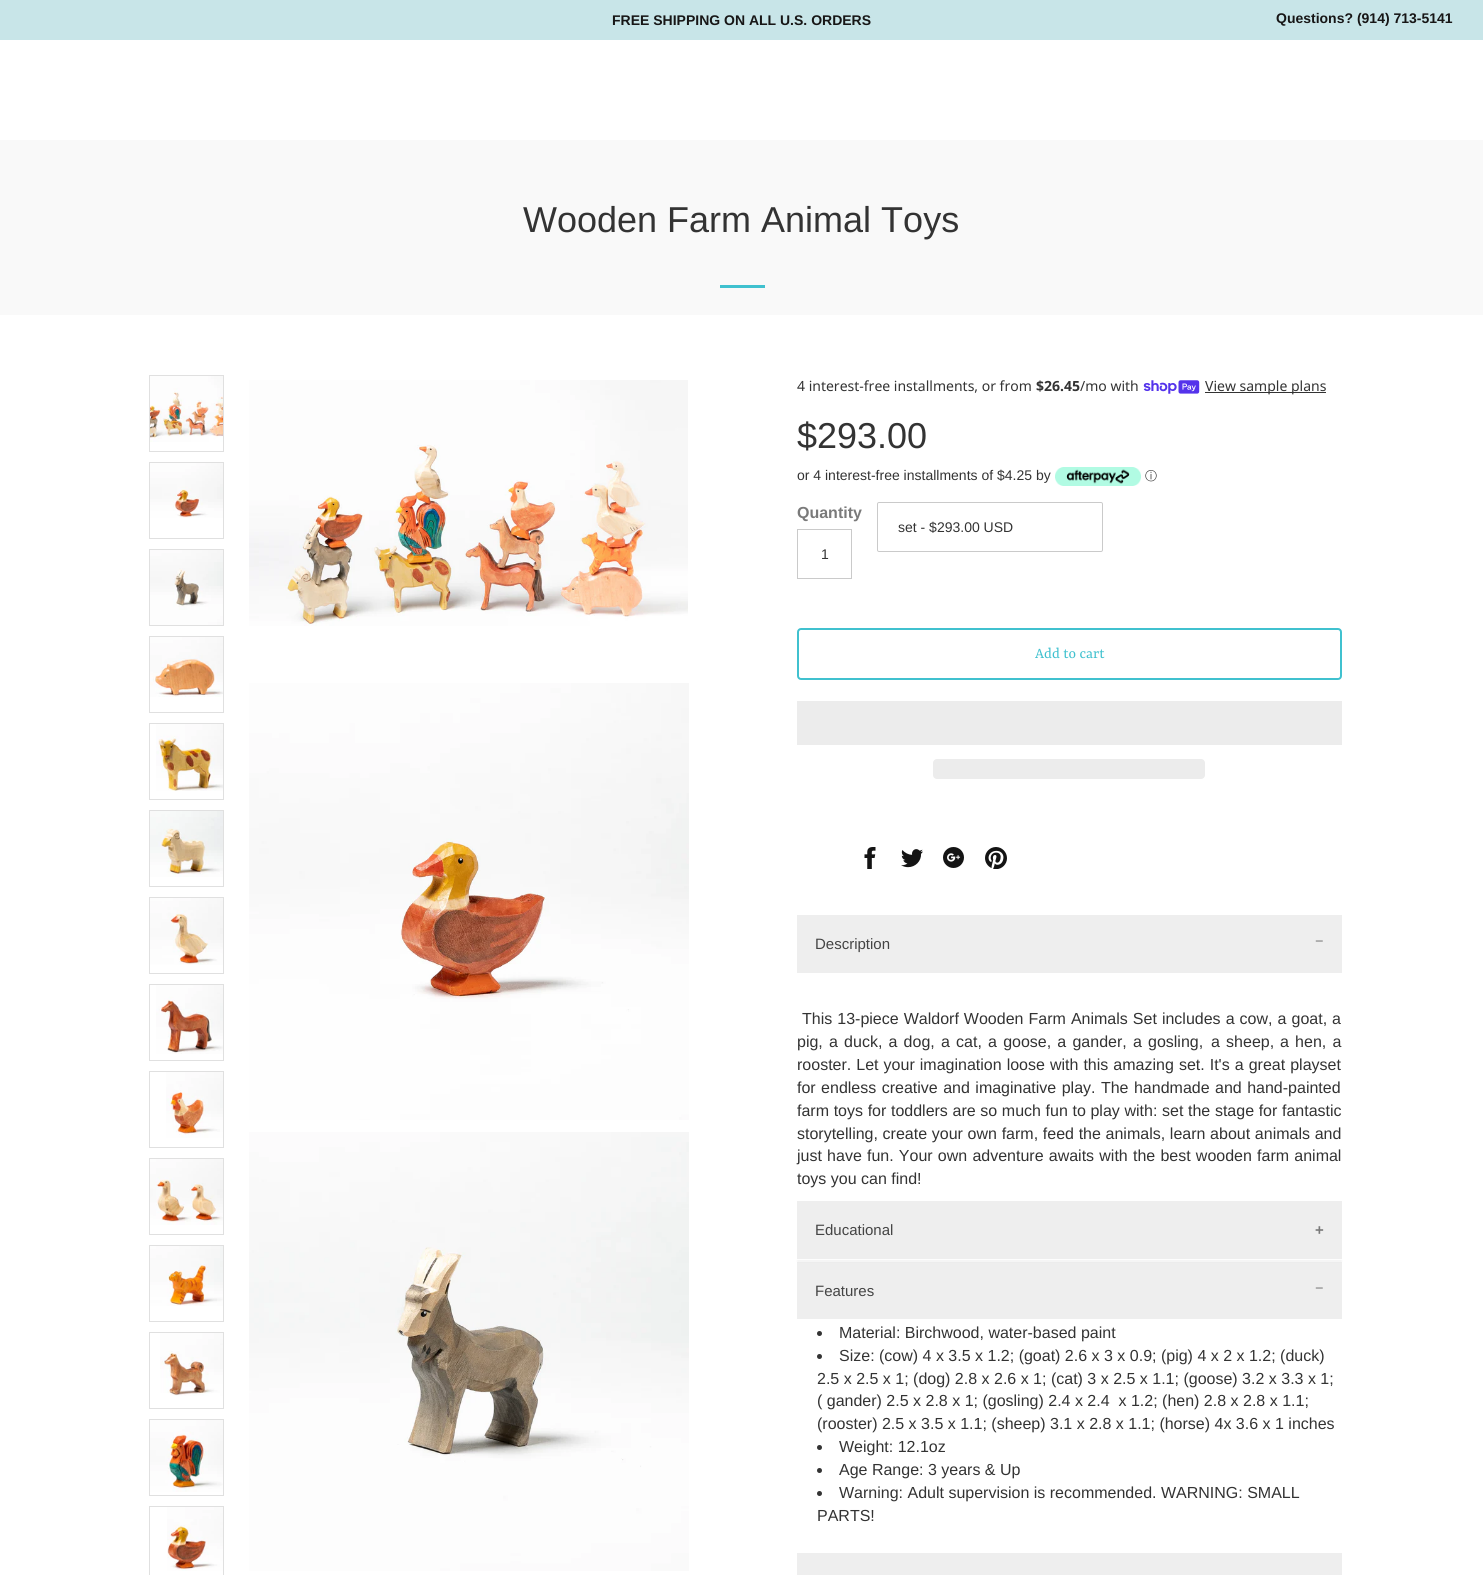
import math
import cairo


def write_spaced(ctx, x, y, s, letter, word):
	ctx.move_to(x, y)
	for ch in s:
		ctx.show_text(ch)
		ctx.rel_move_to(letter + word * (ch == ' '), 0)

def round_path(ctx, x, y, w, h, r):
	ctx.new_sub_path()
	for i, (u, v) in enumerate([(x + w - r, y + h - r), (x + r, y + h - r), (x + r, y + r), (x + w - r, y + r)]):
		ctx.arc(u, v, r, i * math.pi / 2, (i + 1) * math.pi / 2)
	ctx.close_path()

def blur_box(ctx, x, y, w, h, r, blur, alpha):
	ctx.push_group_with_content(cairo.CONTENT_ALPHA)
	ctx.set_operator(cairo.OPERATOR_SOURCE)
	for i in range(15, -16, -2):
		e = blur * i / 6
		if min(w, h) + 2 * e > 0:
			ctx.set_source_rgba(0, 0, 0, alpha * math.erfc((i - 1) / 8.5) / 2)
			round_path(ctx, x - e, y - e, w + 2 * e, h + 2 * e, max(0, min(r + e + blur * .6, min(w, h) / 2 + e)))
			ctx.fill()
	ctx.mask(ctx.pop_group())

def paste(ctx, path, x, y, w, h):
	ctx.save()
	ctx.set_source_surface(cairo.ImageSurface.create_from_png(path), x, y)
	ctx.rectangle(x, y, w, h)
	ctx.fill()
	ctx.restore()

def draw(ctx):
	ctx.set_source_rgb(1, 1, 1)
	ctx.paint()
	ctx.set_source_rgb(0.784, 0.898, 0.91)
	ctx.rectangle(0, 0, 1483, 40)
	ctx.fill()
	ctx.select_font_face('Liberation Sans', cairo.FONT_SLANT_NORMAL, cairo.FONT_WEIGHT_BOLD)
	ctx.set_font_size(14)
	ctx.set_source_rgb(0.09, 0.086, 0.086)
	ctx.move_to(612, 25)
	ctx.show_text('FREE SHIPPING ON ALL U.S. ORDERS')
	ctx.move_to(1276, 23)
	ctx.show_text('Questions? (914) 713-5141')
	ctx.set_source_rgb(0.976, 0.976, 0.976)
	ctx.rectangle(0, 140, 1483, 175)
	ctx.fill()
	ctx.select_font_face('Liberation Sans')
	ctx.set_font_size(36)
	ctx.set_source_rgb(0.2, 0.2, 0.2)
	ctx.move_to(523, 232)
	ctx.show_text('Wooden Farm Animal Toys')
	ctx.set_source_rgb(0.251, 0.757, 0.812)
	ctx.rectangle(720, 285, 45, 3)
	ctx.fill()
	ctx.rectangle(149.5, 375.5, 74, 76)
	ctx.set_source_rgb(0.878, 0.878, 0.878)
	ctx.set_line_width(1)
	ctx.stroke()
	paste(ctx, 'media/1.png', 150, 376, 73, 66)
	ctx.rectangle(149.5, 462.5, 74, 76)
	ctx.stroke()
	paste(ctx, 'media/2.png', 150, 463, 73, 55)
	ctx.rectangle(149.5, 549.5, 74, 76)
	ctx.stroke()
	paste(ctx, 'media/3.png', 150, 550, 73, 75)
	ctx.rectangle(149.5, 636.5, 74, 76)
	ctx.stroke()
	paste(ctx, 'media/4.png', 150, 637, 73, 60)
	ctx.rectangle(149.5, 723.5, 74, 76)
	ctx.stroke()
	paste(ctx, 'media/5.png', 156, 724, 67, 67)
	ctx.rectangle(149.5, 810.5, 74, 76)
	ctx.stroke()
	paste(ctx, 'media/6.png', 150, 811, 73, 66)
	ctx.rectangle(149.5, 897.5, 74, 76)
	ctx.stroke()
	paste(ctx, 'media/7.png', 150, 898, 73, 67)
	ctx.rectangle(149.5, 984.5, 74, 76)
	ctx.stroke()
	paste(ctx, 'media/8.png', 156, 985, 67, 69)
	ctx.rectangle(149.5, 1071.5, 74, 76)
	ctx.stroke()
	paste(ctx, 'media/9.png', 166, 1072, 57, 66)
	ctx.rectangle(149.5, 1158.5, 74, 76)
	ctx.stroke()
	paste(ctx, 'media/10.png', 150, 1159, 73, 66)
	ctx.rectangle(149.5, 1245.5, 74, 76)
	ctx.stroke()
	paste(ctx, 'media/11.png', 150, 1246, 73, 60)
	ctx.rectangle(149.5, 1332.5, 74, 76)
	ctx.stroke()
	paste(ctx, 'media/12.png', 160, 1333, 63, 63)
	ctx.rectangle(149.5, 1419.5, 74, 76)
	ctx.stroke()
	paste(ctx, 'media/13.png', 150, 1420, 73, 72)
	ctx.rectangle(149.5, 1506.5, 74, 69)
	ctx.stroke()
	paste(ctx, 'media/14.png', 167, 1507, 56, 64)
	paste(ctx, 'media/15.png', 249, 380, 439, 246)
	paste(ctx, 'media/16.png', 249, 683, 440, 437)
	paste(ctx, 'media/17.png', 249, 1132, 440, 439)
	ctx.select_font_face('Noto Sans')
	ctx.set_font_size(14)
	ctx.set_source_rgb(0.2, 0.2, 0.2)
	ctx.move_to(797, 391)
	ctx.show_text('4 interest-free installments, or from')
	ctx.select_font_face('Noto Sans', cairo.FONT_SLANT_NORMAL, cairo.FONT_WEIGHT_BOLD)
	ctx.move_to(1036, 391)
	ctx.show_text('$26.45')
	ctx.select_font_face('Noto Sans')
	ctx.move_to(1080, 391)
	ctx.show_text('/mo with')
	paste(ctx, 'media/18.png', 1143, 380, 57, 14)
	ctx.rectangle(1205, 392, 121, 1)
	ctx.fill()
	ctx.move_to(1205, 391)
	ctx.show_text('View sample plans')
	ctx.select_font_face('Liberation Sans')
	ctx.set_font_size(36)
	ctx.move_to(797, 448)
	ctx.show_text('$293.00')
	ctx.set_font_size(14)
	ctx.move_to(797, 480)
	ctx.show_text('or 4 interest-free installments of $4.25 by')
	paste(ctx, 'media/19.png', 1055, 467, 86, 19)
	ctx.select_font_face('WenQuanYi Zen Hei Medium')
	ctx.set_font_size(12)
	ctx.move_to(1145, 480)
	ctx.show_text('ⓘ')
	ctx.select_font_face('Liberation Sans', cairo.FONT_SLANT_NORMAL, cairo.FONT_WEIGHT_BOLD)
	ctx.set_font_size(16)
	ctx.set_source_rgb(0.478, 0.478, 0.478)
	ctx.move_to(797, 518)
	ctx.show_text('Quantity')
	ctx.rectangle(797.5, 529.5, 54, 49)
	ctx.set_source_rgb(0.792, 0.792, 0.792)
	ctx.stroke()
	ctx.select_font_face('Liberation Sans')
	ctx.set_font_size(14)
	ctx.set_source_rgb(0.2, 0.2, 0.2)
	ctx.move_to(821, 559)
	ctx.show_text('1')
	round_path(ctx, 877.5, 502.5, 225, 49, 1.5)
	ctx.set_source_rgb(0.792, 0.792, 0.792)
	ctx.stroke()
	ctx.set_source_rgb(0.2, 0.2, 0.2)
	ctx.move_to(898, 532)
	ctx.show_text('set - $293.00 USD')
	round_path(ctx, 798, 629, 543, 50, 3)
	ctx.set_source_rgb(0.251, 0.757, 0.812)
	ctx.set_line_width(2)
	ctx.stroke()
	ctx.select_font_face('Yrsa')
	ctx.set_font_size(16)
	ctx.move_to(1035, 658)
	ctx.show_text('Add to cart')
	ctx.set_source_rgb(0.922, 0.922, 0.922)
	ctx.rectangle(797, 701, 545, 44)
	ctx.fill()
	round_path(ctx, 933, 759, 272, 20, 4)
	ctx.fill()
	paste(ctx, 'media/20.png', 864, 847, 12, 22)
	paste(ctx, 'media/21.png', 901, 849, 22, 19)
	paste(ctx, 'media/22.png', 943, 847, 21, 21)
	paste(ctx, 'media/23.png', 985, 847, 22, 22)
	ctx.set_source_rgb(0.933, 0.933, 0.933)
	ctx.rectangle(797, 915, 545, 58)
	ctx.fill()
	ctx.select_font_face('Liberation Sans')
	ctx.set_font_size(15)
	ctx.set_source_rgb(0.267, 0.267, 0.267)
	ctx.move_to(815, 949)
	ctx.show_text('Description')
	ctx.select_font_face('Liberation Serif', cairo.FONT_SLANT_NORMAL, cairo.FONT_WEIGHT_BOLD)
	ctx.set_source_rgb(0.478, 0.478, 0.478)
	ctx.move_to(1315, 946)
	ctx.show_text('−')
	ctx.select_font_face('Liberation Sans')
	ctx.set_font_size(16)
	ctx.set_source_rgb(0.2, 0.2, 0.2)
	write_spaced(ctx, 802, 1024, 'This 13-piece Waldorf Wooden Farm Animals Set includes a cow, a goat, a', 0, 0.6)
	for x, y, s in [
		(797, 1047, 'pig, a duck, a dog, a cat, a goose, a gander, a gosling,'),
		(1211, 1047, 'a sheep,'),
		(1280, 1047, 'a hen, a'),
	]:
		write_spaced(ctx, x, y, s, 0, 1.75)
	write_spaced(ctx, 797, 1070, 'rooster. Let your imagination loose with this amazing set. It\'s a great playset', 0, 0.6)
	write_spaced(ctx, 797, 1093, 'for endless creative and imaginative play. The handmade and hand-painted', 0, 1)
	write_spaced(ctx, 797, 1116, 'farm toys for toddlers are so much fun to play with: set the stage for fantastic', 0, 0.2)
	write_spaced(ctx, 797, 1139, 'storytelling, create your own farm, feed the animals, learn about animals and', 0, 0.25)
	write_spaced(ctx, 797, 1161, 'just have fun. Your own adventure awaits with the best wooden farm animal', 0, 0.75)
	ctx.move_to(797, 1184)
	ctx.show_text('toys you can find!')
	ctx.set_source_rgb(0.933, 0.933, 0.933)
	ctx.rectangle(797, 1201, 545, 58)
	ctx.fill()
	ctx.set_font_size(15)
	ctx.set_source_rgb(0.267, 0.267, 0.267)
	ctx.move_to(815, 1235)
	ctx.show_text('Educational')
	ctx.select_font_face('Liberation Sans', cairo.FONT_SLANT_NORMAL, cairo.FONT_WEIGHT_BOLD)
	ctx.set_source_rgb(0.478, 0.478, 0.478)
	ctx.move_to(1315, 1235)
	ctx.show_text('+')
	ctx.set_source_rgb(0.933, 0.933, 0.933)
	ctx.rectangle(797, 1262, 545, 57)
	ctx.fill()
	ctx.set_source_rgb(0, 0, 0)
	blur_box(ctx, 797, 1260, 545, 2, 1, 0.5, 0.05)
	ctx.select_font_face('Liberation Sans')
	ctx.set_source_rgb(0.267, 0.267, 0.267)
	ctx.move_to(815, 1296)
	ctx.show_text('Features')
	ctx.select_font_face('Liberation Serif', cairo.FONT_SLANT_NORMAL, cairo.FONT_WEIGHT_BOLD)
	ctx.set_source_rgb(0.478, 0.478, 0.478)
	ctx.move_to(1315, 1293)
	ctx.show_text('−')
	ctx.set_source_rgb(0.2, 0.2, 0.2)
	ctx.new_path()
	ctx.arc(819.5, 1333.5, 2.5, 0, 2 * math.pi)
	ctx.fill()
	ctx.select_font_face('Liberation Sans')
	ctx.set_font_size(16)
	ctx.move_to(839, 1338)
	ctx.show_text('Material: Birchwood, water-based paint')
	ctx.new_path()
	ctx.arc(819.5, 1356.5, 2.5, 0, 2 * math.pi)
	ctx.fill()
	for x, y, s in [
		(839, 1361, 'Size: (cow) 4 x 3.5 x 1.2; (goat) 2.6 x 3 x 0.9; (pig) 4 x 2 x 1.2; (duck)'),
		(817, 1384, '2.5 x 2.5 x 1; (dog) 2.8 x 2.6 x 1; (cat) 3 x 2.5 x 1.1; (goose) 3.2 x 3.3 x 1;'),
		(817, 1406, '( gander) 2.5 x 2.8 x 1; (gosling) 2.4 x 2.4  x 1.2; (hen) 2.8 x 2.8 x 1.1;'),
		(817, 1429, '(rooster) 2.5 x 3.5 x 1.1; (sheep) 3.1 x 2.8 x 1.1; (horse) 4x 3.6 x 1 inches'),
	]:
		ctx.move_to(x, y)
		ctx.show_text(s)
	ctx.new_path()
	ctx.arc(819.5, 1447.5, 2.5, 0, 2 * math.pi)
	ctx.fill()
	ctx.move_to(839, 1452)
	ctx.show_text('Weight: 12.1oz')
	ctx.new_path()
	ctx.arc(819.5, 1470.5, 2.5, 0, 2 * math.pi)
	ctx.fill()
	ctx.move_to(839, 1475)
	ctx.show_text('Age Range: 3 years & Up')
	ctx.new_path()
	ctx.arc(819.5, 1493.5, 2.5, 0, 2 * math.pi)
	ctx.fill()
	ctx.move_to(839, 1498)
	ctx.show_text('Warning: Adult supervision is recommended. WARNING: SMALL')
	ctx.move_to(817, 1521)
	ctx.show_text('PARTS!')
	ctx.set_source_rgb(0.933, 0.933, 0.933)
	ctx.rectangle(797, 1553, 545, 22)
	ctx.fill()


surface = cairo.ImageSurface(cairo.FORMAT_RGB24, 1483, 1575)
ctx = cairo.Context(surface)
options = cairo.FontOptions()
options.set_hint_metrics(cairo.HINT_METRICS_OFF)
options.set_hint_style(cairo.HINT_STYLE_NONE)
ctx.set_font_options(options)
ctx.set_miter_limit(4)
draw(ctx)
surface.write_to_png('image.png')
